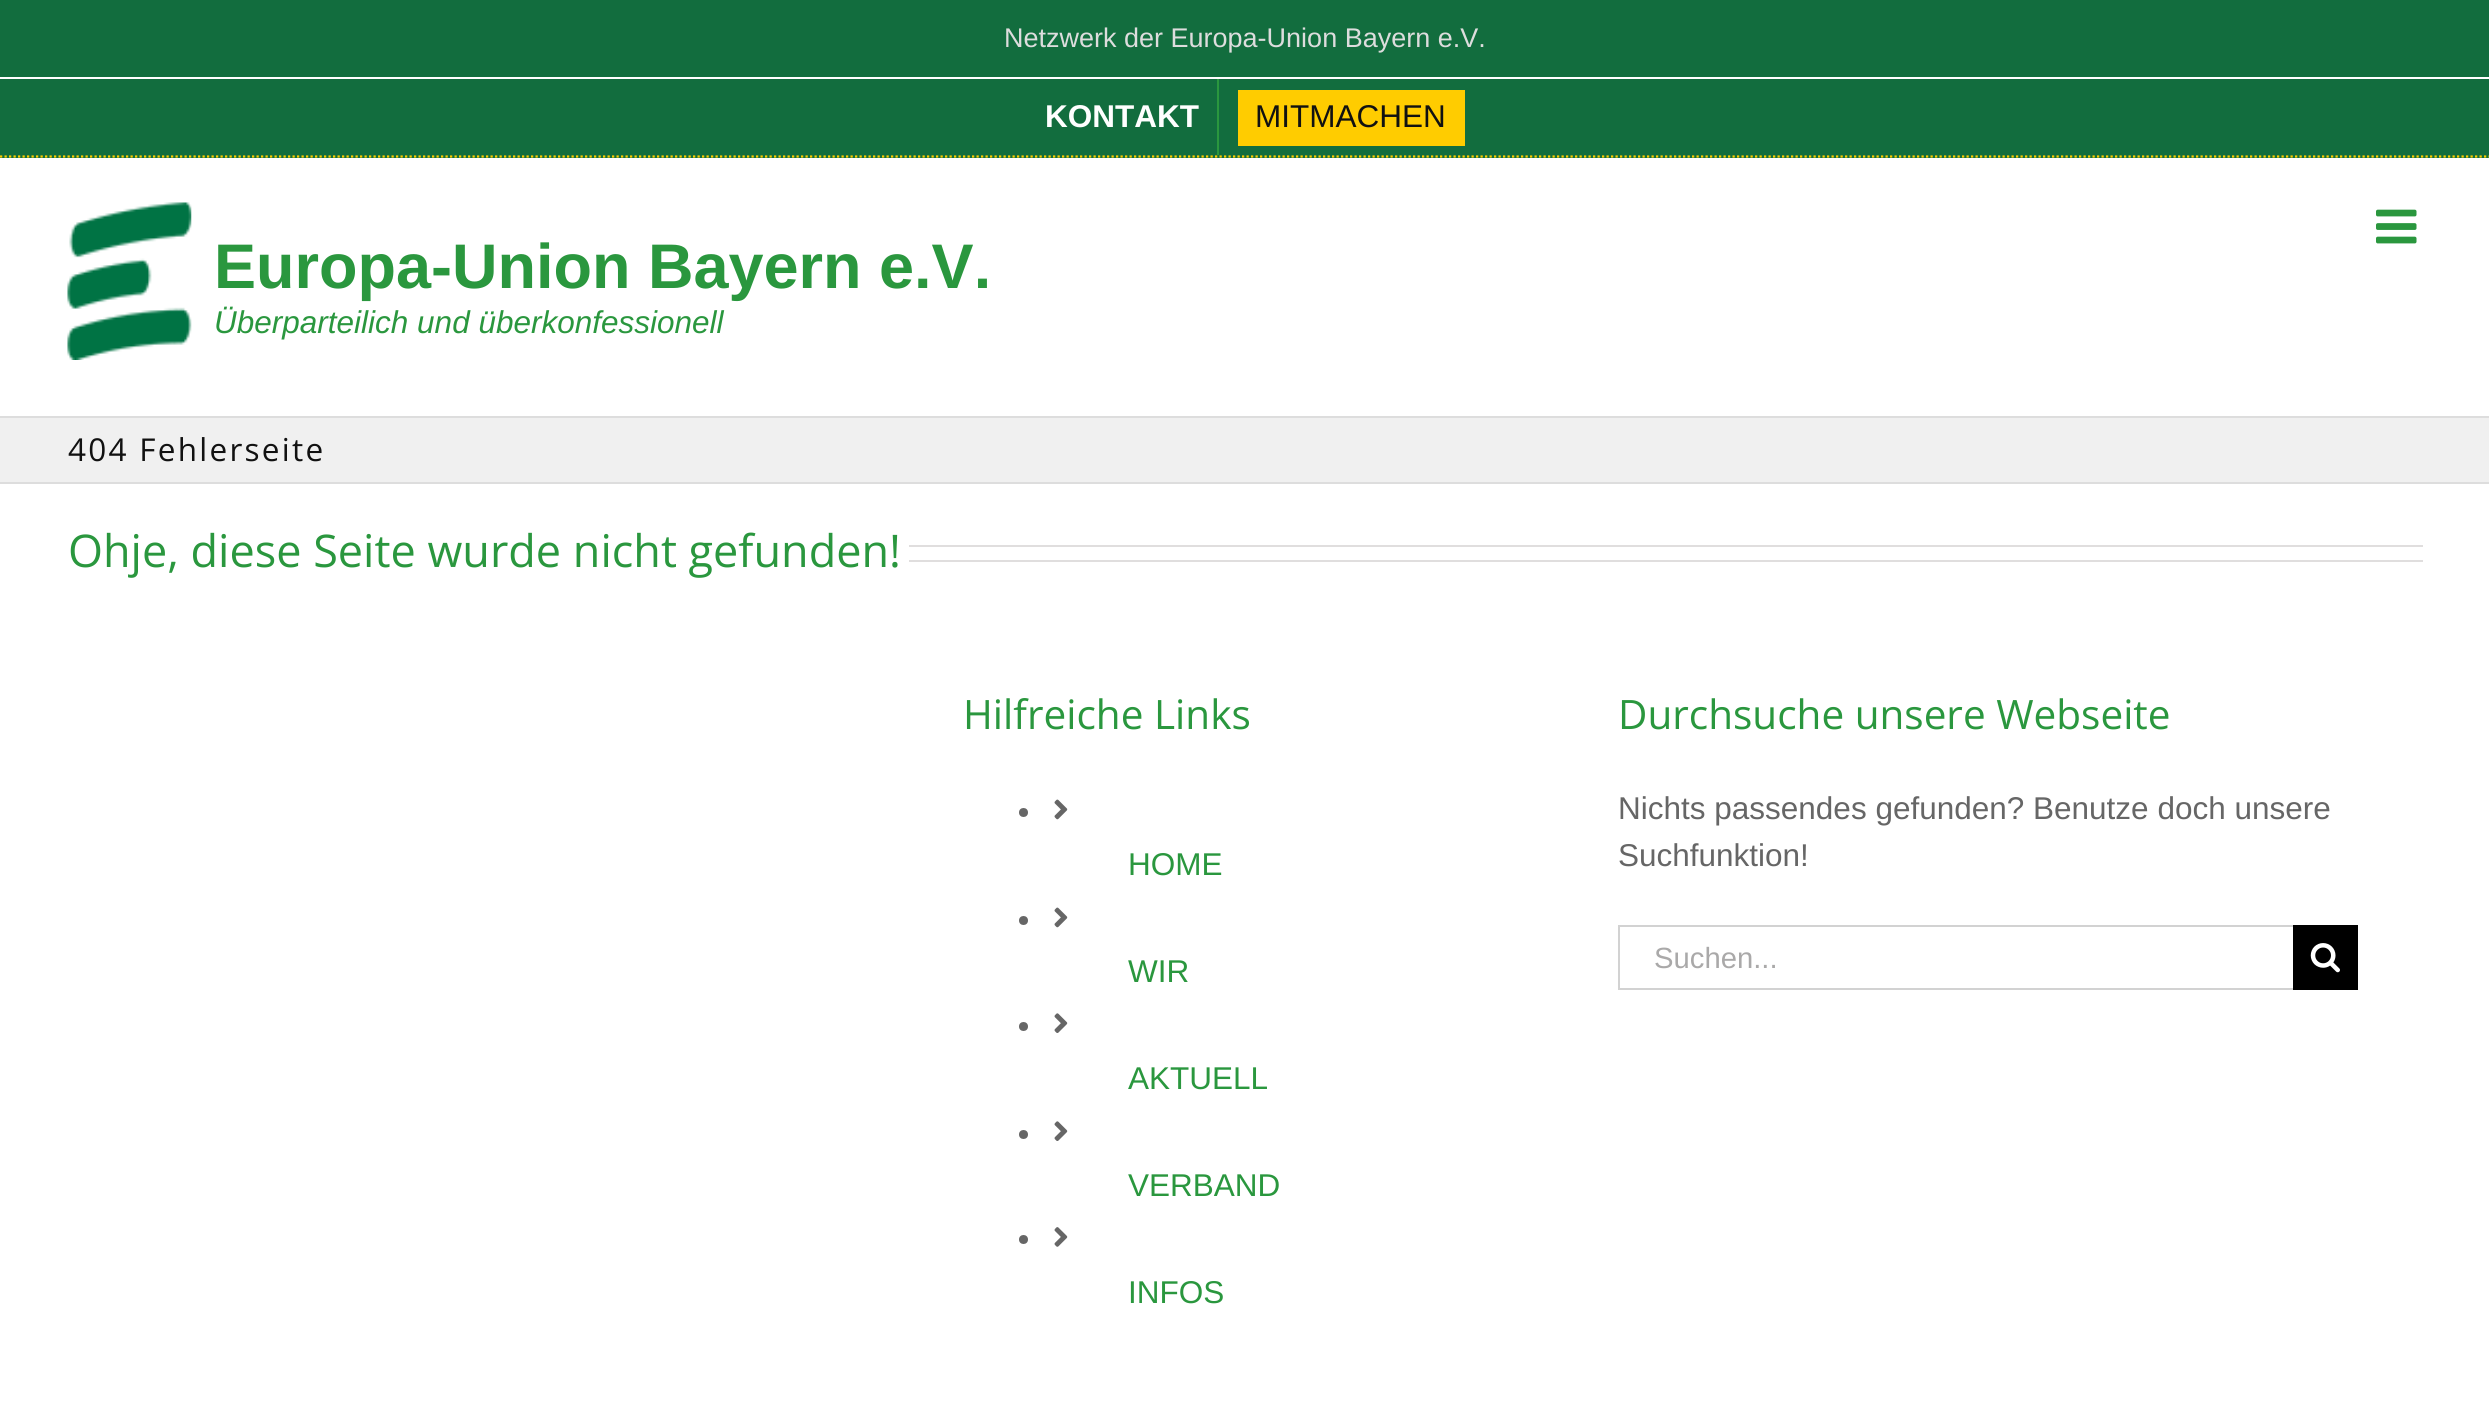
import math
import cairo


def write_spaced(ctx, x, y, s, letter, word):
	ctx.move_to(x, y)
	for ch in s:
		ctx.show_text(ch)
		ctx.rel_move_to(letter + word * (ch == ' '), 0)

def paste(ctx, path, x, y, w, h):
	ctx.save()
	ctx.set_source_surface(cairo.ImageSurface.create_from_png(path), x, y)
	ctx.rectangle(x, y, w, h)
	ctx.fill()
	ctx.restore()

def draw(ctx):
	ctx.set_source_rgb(1, 1, 1)
	ctx.paint()
	ctx.set_source_rgb(0.071, 0.427, 0.243)
	ctx.rectangle(0, 0, 2489, 158)
	ctx.fill()
	ctx.new_path()
	ctx.move_to(0, 156.5)
	ctx.line_to(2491, 156.5)
	ctx.set_source_rgb(1, 0.8, 0)
	ctx.set_line_width(2.2)
	ctx.set_dash([2.25, 2.25])
	ctx.stroke()
	ctx.set_source_rgb(1, 1, 1)
	ctx.rectangle(0, 77, 2489, 2)
	ctx.fill()
	ctx.select_font_face('Liberation Sans')
	ctx.set_font_size(27)
	ctx.set_source_rgb(0.867, 0.867, 0.867)
	ctx.move_to(1004, 47)
	ctx.show_text('Netzwerk der Europa-Union Bayern e.V.')
	ctx.select_font_face('Liberation Sans', cairo.FONT_SLANT_NORMAL, cairo.FONT_WEIGHT_BOLD)
	ctx.set_font_size(31.5)
	ctx.set_source_rgb(1, 1, 1)
	ctx.move_to(1045, 127)
	ctx.show_text('KONTAKT')
	ctx.set_source_rgb(0.165, 0.592, 0.243)
	ctx.rectangle(1217, 79, 2, 76)
	ctx.fill()
	ctx.set_source_rgb(1, 0.8, 0)
	ctx.rectangle(1238, 90, 227, 56)
	ctx.fill()
	ctx.select_font_face('Liberation Sans')
	ctx.set_source_rgb(0.067, 0.067, 0.067)
	ctx.move_to(1255, 127)
	ctx.show_text('MITMACHEN')
	paste(ctx, 'media/1.png', 2376, 209, 41, 35)
	paste(ctx, 'media/2.png', 67, 202, 125, 158)
	ctx.select_font_face('Liberation Sans', cairo.FONT_SLANT_NORMAL, cairo.FONT_WEIGHT_BOLD)
	ctx.set_font_size(63)
	ctx.set_source_rgb(0.165, 0.592, 0.243)
	ctx.move_to(214, 288)
	ctx.show_text('Europa-Union Bayern e.V.')
	ctx.select_font_face('Liberation Sans', cairo.FONT_SLANT_ITALIC)
	ctx.set_font_size(31.5)
	ctx.move_to(214, 333)
	ctx.show_text('Überparteilich und überkonfessionell')
	ctx.set_source_rgb(0.941, 0.941, 0.941)
	ctx.rectangle(0, 418, 2489, 64)
	ctx.fill()
	ctx.set_source_rgb(0.867, 0.867, 0.867)
	ctx.rectangle(0, 416, 2489, 2)
	ctx.rectangle(0, 482, 2489, 2)
	ctx.fill()
	ctx.select_font_face('Open Sans')
	ctx.set_source_rgb(0.067, 0.067, 0.067)
	write_spaced(ctx, 68, 461, '404 Fehlerseite', 2.25, 0)
	ctx.set_font_size(45)
	ctx.set_source_rgb(0.165, 0.592, 0.243)
	ctx.move_to(68, 567)
	ctx.show_text('Ohje, diese Seite wurde nicht gefunden!')
	ctx.set_source_rgb(0.878, 0.871, 0.871)
	ctx.rectangle(909, 545, 1514, 2)
	ctx.fill()
	ctx.rectangle(909, 560, 1514, 2)
	ctx.fill()
	ctx.set_font_size(40.5)
	ctx.set_source_rgb(0.165, 0.592, 0.243)
	ctx.move_to(963, 729)
	ctx.show_text('Hilfreiche Links')
	ctx.set_source_rgb(0.4, 0.4, 0.4)
	ctx.new_path()
	ctx.arc(1023.5, 812.5, 4.5, 0, 2 * math.pi)
	ctx.fill()
	paste(ctx, 'media/3.png', 1054, 799, 14, 21)
	ctx.select_font_face('Liberation Sans')
	ctx.set_font_size(31.5)
	ctx.set_source_rgb(0.165, 0.592, 0.243)
	ctx.move_to(1128, 875)
	ctx.show_text('HOME')
	ctx.set_source_rgb(0.4, 0.4, 0.4)
	ctx.new_path()
	ctx.arc(1023.5, 920.5, 4.5, 0, 2 * math.pi)
	ctx.fill()
	paste(ctx, 'media/3.png', 1054, 907, 14, 21)
	ctx.set_source_rgb(0.165, 0.592, 0.243)
	ctx.move_to(1128, 982)
	ctx.show_text('WIR')
	ctx.set_source_rgb(0.4, 0.4, 0.4)
	ctx.new_path()
	ctx.arc(1023.5, 1026.5, 4.5, 0, 2 * math.pi)
	ctx.fill()
	paste(ctx, 'media/4.png', 1054, 1013, 14, 20)
	ctx.set_source_rgb(0.165, 0.592, 0.243)
	ctx.move_to(1128, 1089)
	ctx.show_text('AKTUELL')
	ctx.set_source_rgb(0.4, 0.4, 0.4)
	ctx.new_path()
	ctx.arc(1023.5, 1134.5, 4.5, 0, 2 * math.pi)
	ctx.fill()
	paste(ctx, 'media/4.png', 1054, 1121, 14, 20)
	ctx.set_source_rgb(0.165, 0.592, 0.243)
	ctx.move_to(1128, 1196)
	ctx.show_text('VERBAND')
	ctx.set_source_rgb(0.4, 0.4, 0.4)
	ctx.new_path()
	ctx.arc(1023.5, 1239.5, 4.5, 0, 2 * math.pi)
	ctx.fill()
	paste(ctx, 'media/5.png', 1054, 1227, 14, 20)
	ctx.set_source_rgb(0.165, 0.592, 0.243)
	ctx.move_to(1128, 1303)
	ctx.show_text('INFOS')
	ctx.select_font_face('Open Sans')
	ctx.set_font_size(40.5)
	ctx.move_to(1618, 729)
	ctx.show_text('Durchsuche unsere Webseite')
	ctx.select_font_face('Liberation Sans')
	ctx.set_font_size(31.5)
	ctx.set_source_rgb(0.4, 0.4, 0.4)
	ctx.move_to(1618, 819)
	ctx.show_text('Nichts passendes gefunden? Benutze doch unsere')
	ctx.move_to(1618, 866)
	ctx.show_text('Suchfunktion!')
	ctx.set_source_rgb(0.824, 0.824, 0.824)
	ctx.rectangle(1618, 925, 675, 2)
	ctx.rectangle(1618, 988, 675, 2)
	ctx.rectangle(1618, 925, 2, 65)
	ctx.fill()
	ctx.set_font_size(29.25)
	ctx.set_source_rgb(0.667, 0.663, 0.663)
	ctx.move_to(1654, 968)
	ctx.show_text('Suchen...')
	ctx.set_source_rgb(0, 0, 0)
	ctx.rectangle(2293, 925, 65, 65)
	ctx.fill()
	paste(ctx, 'media/6.png', 2310, 943, 30, 30)


surface = cairo.ImageSurface(cairo.FORMAT_RGB24, 2489, 1418)
ctx = cairo.Context(surface)
options = cairo.FontOptions()
options.set_hint_metrics(cairo.HINT_METRICS_OFF)
options.set_hint_style(cairo.HINT_STYLE_NONE)
ctx.set_font_options(options)
ctx.set_miter_limit(4)
draw(ctx)
surface.write_to_png('image.png')
